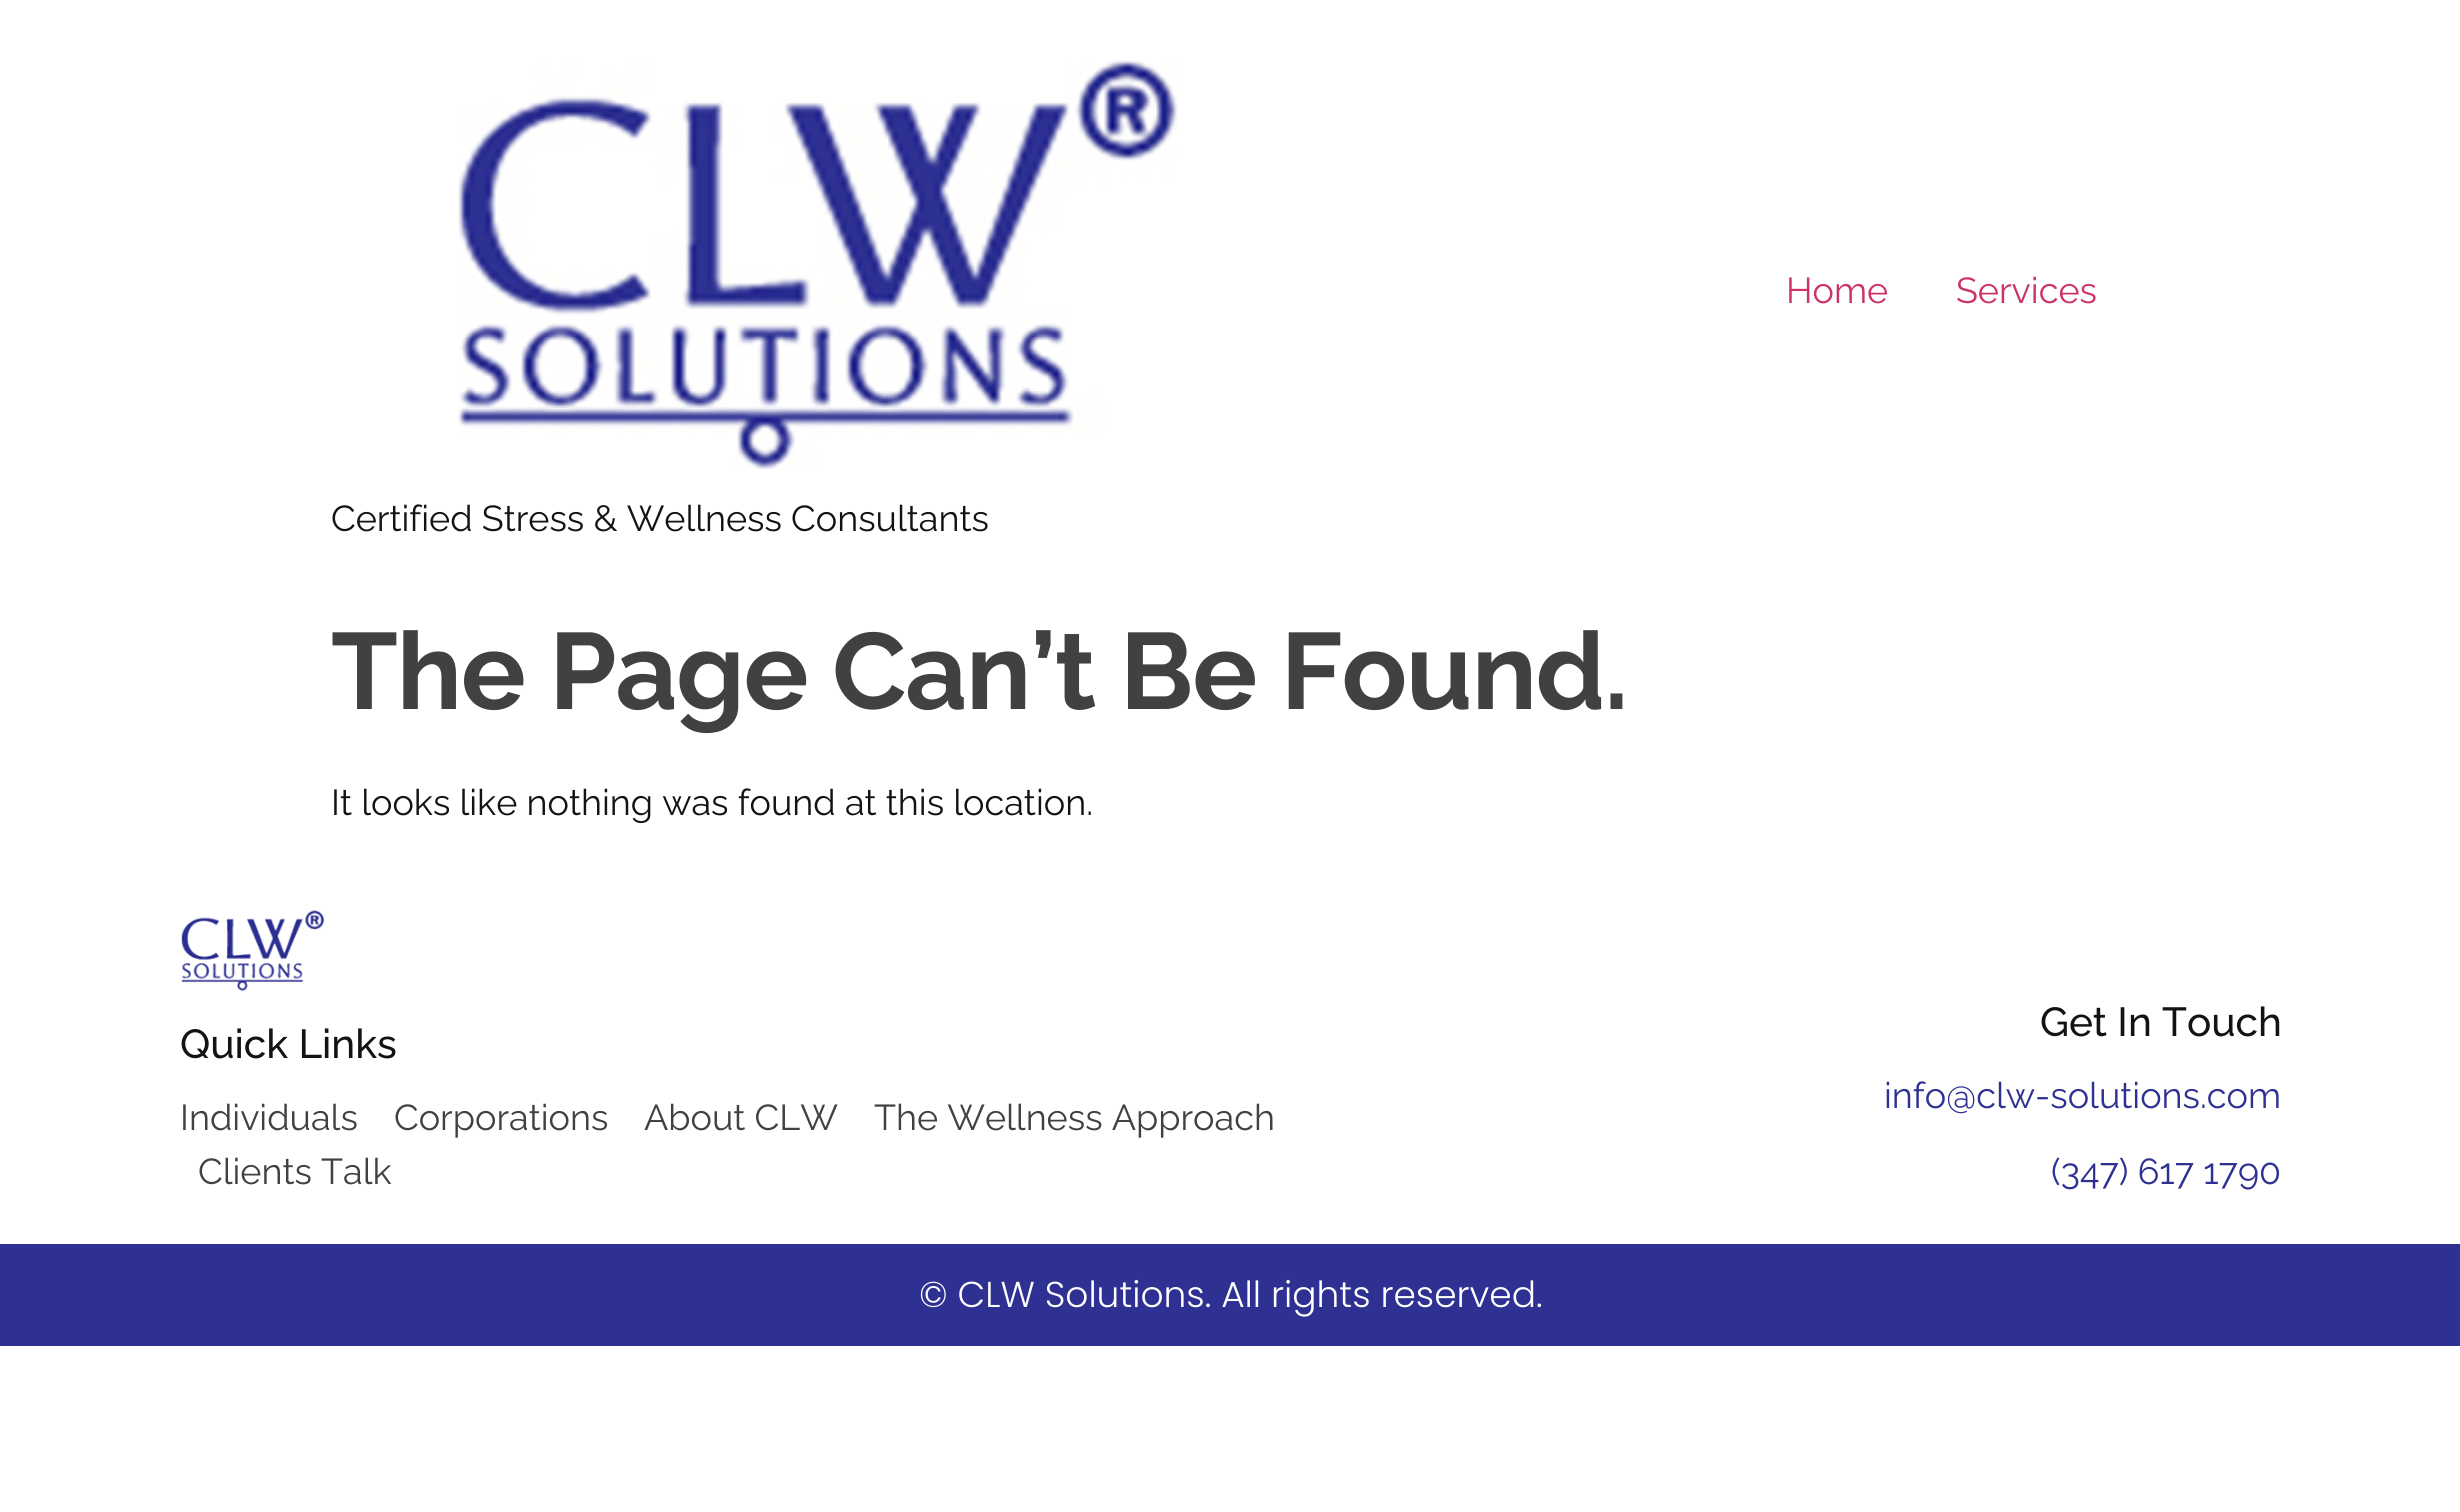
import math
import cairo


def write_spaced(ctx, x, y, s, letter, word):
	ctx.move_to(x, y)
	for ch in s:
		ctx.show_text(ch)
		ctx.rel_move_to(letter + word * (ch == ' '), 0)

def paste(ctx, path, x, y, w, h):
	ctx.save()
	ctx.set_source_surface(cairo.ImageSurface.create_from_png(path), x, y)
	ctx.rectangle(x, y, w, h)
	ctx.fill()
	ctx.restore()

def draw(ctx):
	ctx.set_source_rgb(1, 1, 1)
	ctx.paint()
	ctx.select_font_face('Raleway')
	ctx.set_font_size(36)
	ctx.set_source_rgb(0.8, 0.2, 0.4)
	ctx.move_to(1786, 303)
	ctx.show_text('Home')
	ctx.move_to(1956, 303)
	ctx.show_text('Services')
	paste(ctx, 'media/1.png', 458, 60, 720, 410)
	ctx.set_source_rgb(0.078, 0.078, 0.078)
	ctx.move_to(331, 531)
	ctx.show_text('Certified Stress & Wellness Consultants')
	ctx.select_font_face('Raleway', cairo.FONT_SLANT_NORMAL, cairo.FONT_WEIGHT_BOLD)
	ctx.set_font_size(108)
	ctx.set_source_rgb(0.255, 0.255, 0.255)
	write_spaced(ctx, 331, 709, 'The Page Can’t Be Found.', -1.1, 0)
	ctx.select_font_face('Raleway')
	ctx.set_font_size(36)
	ctx.set_source_rgb(0.078, 0.078, 0.078)
	ctx.move_to(331, 815)
	ctx.show_text('It looks like nothing was found at this location.')
	paste(ctx, 'media/2.png', 181, 910, 144, 81)
	ctx.select_font_face('Raleway Medium')
	ctx.set_font_size(40.5)
	ctx.move_to(180, 1058)
	ctx.show_text('Quick Links')
	ctx.select_font_face('Raleway')
	ctx.set_font_size(36)
	ctx.set_source_rgb(0.255, 0.255, 0.255)
	for x, y, s in [
		(180, 1130, 'Individuals'),
		(394, 1130, 'Corporations'),
		(644, 1130, 'About CLW'),
		(874, 1130, 'The Wellness Approach'),
		(198, 1184, 'Clients Talk'),
	]:
		ctx.move_to(x, y)
		ctx.show_text(s)
	ctx.select_font_face('Raleway Medium')
	ctx.set_font_size(40.5)
	ctx.set_source_rgb(0.078, 0.078, 0.078)
	ctx.move_to(2040, 1036)
	ctx.show_text('Get In Touch')
	ctx.select_font_face('Raleway')
	ctx.set_font_size(36)
	ctx.set_source_rgb(0.18, 0.192, 0.573)
	ctx.move_to(1884, 1108)
	ctx.show_text('info@clw-solutions.com')
	ctx.move_to(2051, 1184)
	ctx.show_text('(347) 617 1790')
	ctx.rectangle(0, 1244, 2460, 102)
	ctx.fill()
	ctx.select_font_face('Poppins Light')
	ctx.set_source_rgb(1, 1, 1)
	ctx.move_to(919, 1307)
	ctx.show_text('© CLW Solutions. All rights reserved.')


surface = cairo.ImageSurface(cairo.FORMAT_RGB24, 2460, 1512)
ctx = cairo.Context(surface)
options = cairo.FontOptions()
options.set_hint_metrics(cairo.HINT_METRICS_OFF)
options.set_hint_style(cairo.HINT_STYLE_NONE)
ctx.set_font_options(options)
ctx.set_miter_limit(4)
draw(ctx)
surface.write_to_png('image.png')
